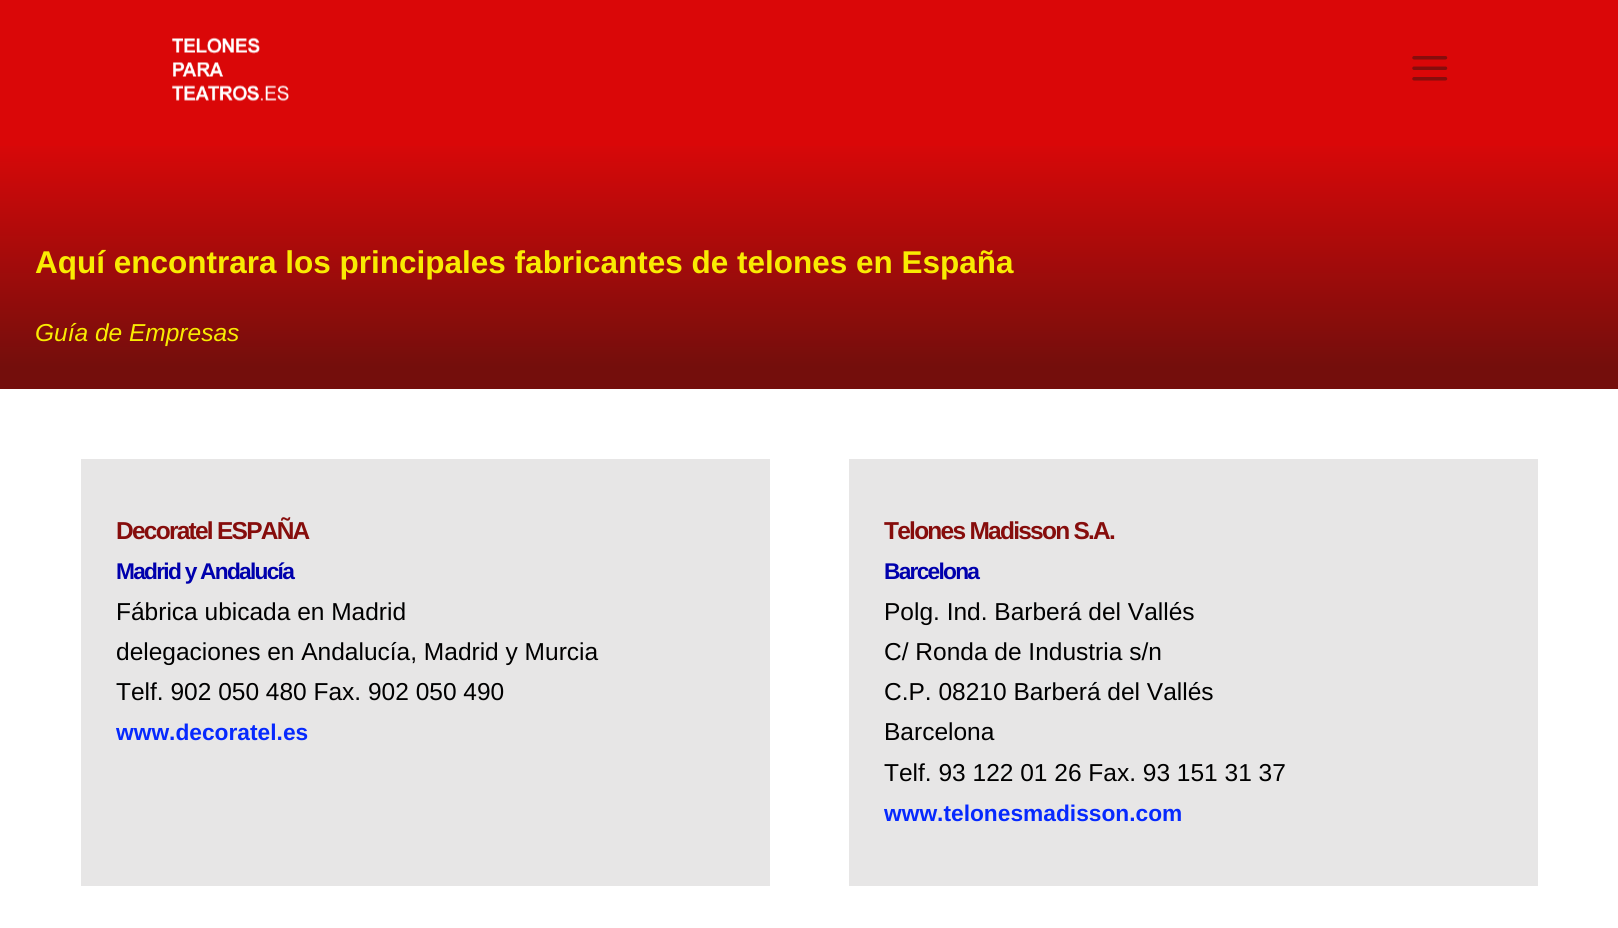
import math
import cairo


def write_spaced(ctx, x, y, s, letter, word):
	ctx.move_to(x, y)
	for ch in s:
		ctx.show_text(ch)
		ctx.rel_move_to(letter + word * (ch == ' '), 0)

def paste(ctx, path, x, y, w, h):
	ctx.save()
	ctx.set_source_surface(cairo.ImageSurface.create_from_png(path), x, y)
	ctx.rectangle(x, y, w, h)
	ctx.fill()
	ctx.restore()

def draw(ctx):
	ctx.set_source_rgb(0.855, 0.031, 0.035)
	ctx.paint()
	paste(ctx, 'media/1.png', 172, 37, 117, 65)
	paste(ctx, 'media/2.png', 1412, 56, 36, 25)
	ctx.set_source_rgb(1, 1, 1)
	ctx.rectangle(0, 389, 1618, 539)
	ctx.fill()
	gradient = cairo.LinearGradient(809, 140, 809, 389)
	gradient.add_color_stop_rgba(0, 0.855, 0.031, 0.035, 1)
	gradient.add_color_stop_rgba(0.91, 0.455, 0.055, 0.047, 1)
	ctx.set_source(gradient)
	ctx.rectangle(0, 146, 1618, 243)
	ctx.fill()
	ctx.select_font_face('Liberation Sans', cairo.FONT_SLANT_NORMAL, cairo.FONT_WEIGHT_BOLD)
	ctx.set_font_size(31.5)
	ctx.set_source_rgb(0.973, 0.918, 0.008)
	ctx.move_to(35, 273)
	ctx.show_text('Aquí encontrara los principales fabricantes de telones en España')
	ctx.select_font_face('Liberation Sans', cairo.FONT_SLANT_ITALIC)
	ctx.set_font_size(24.5)
	ctx.move_to(35, 341)
	ctx.show_text('Guía de Empresas')
	ctx.set_source_rgb(0.906, 0.902, 0.902)
	ctx.rectangle(81, 459, 689, 427)
	ctx.fill()
	ctx.select_font_face('Liberation Sans', cairo.FONT_SLANT_NORMAL, cairo.FONT_WEIGHT_BOLD)
	ctx.set_source_rgb(0.525, 0.051, 0.047)
	write_spaced(ctx, 116, 539, 'Decoratel ESPAÑA', -1.75, 0)
	ctx.set_font_size(22.75)
	ctx.set_source_rgb(0, 0, 0.678)
	write_spaced(ctx, 116, 579, 'Madrid y Andalucía', -1.75, 0)
	ctx.select_font_face('Liberation Sans')
	ctx.set_font_size(24.5)
	ctx.set_source_rgb(0, 0, 0)
	for x, y, s in [
		(116, 620, 'Fábrica ubicada en Madrid'),
		(116, 660, 'delegaciones en Andalucía, Madrid y Murcia'),
		(116, 700, 'Telf. 902 050 480 Fax. 902 050 490'),
	]:
		ctx.move_to(x, y)
		ctx.show_text(s)
	ctx.select_font_face('Liberation Sans', cairo.FONT_SLANT_NORMAL, cairo.FONT_WEIGHT_BOLD)
	ctx.set_font_size(22.75)
	ctx.set_source_rgb(0.024, 0.161, 0.996)
	ctx.move_to(116, 740)
	ctx.show_text('www.decoratel.es')
	ctx.set_source_rgb(0.906, 0.902, 0.902)
	ctx.rectangle(849, 459, 689, 427)
	ctx.fill()
	ctx.set_font_size(24.5)
	ctx.set_source_rgb(0.525, 0.051, 0.047)
	write_spaced(ctx, 884, 539, 'Telones Madisson S.A.', -1.75, 0)
	ctx.set_font_size(22.75)
	ctx.set_source_rgb(0, 0, 0.678)
	write_spaced(ctx, 884, 579, 'Barcelona', -1.75, 0)
	ctx.select_font_face('Liberation Sans')
	ctx.set_font_size(24.5)
	ctx.set_source_rgb(0, 0, 0)
	for x, y, s in [
		(884, 620, 'Polg. Ind. Barberá del Vallés'),
		(884, 660, 'C/ Ronda de Industria s/n'),
		(884, 700, 'C.P. 08210 Barberá del Vallés'),
		(884, 740, 'Barcelona'),
		(884, 781, 'Telf. 93 122 01 26 Fax. 93 151 31 37'),
	]:
		ctx.move_to(x, y)
		ctx.show_text(s)
	ctx.select_font_face('Liberation Sans', cairo.FONT_SLANT_NORMAL, cairo.FONT_WEIGHT_BOLD)
	ctx.set_font_size(22.75)
	ctx.set_source_rgb(0.024, 0.161, 0.996)
	ctx.move_to(884, 821)
	ctx.show_text('www.telonesmadisson.com')


surface = cairo.ImageSurface(cairo.FORMAT_RGB24, 1618, 928)
ctx = cairo.Context(surface)
options = cairo.FontOptions()
options.set_hint_metrics(cairo.HINT_METRICS_OFF)
options.set_hint_style(cairo.HINT_STYLE_NONE)
ctx.set_font_options(options)
ctx.set_miter_limit(4)
draw(ctx)
surface.write_to_png('image.png')
